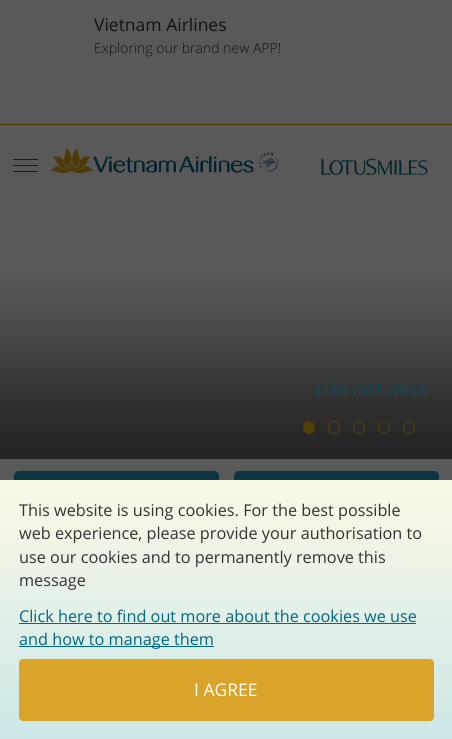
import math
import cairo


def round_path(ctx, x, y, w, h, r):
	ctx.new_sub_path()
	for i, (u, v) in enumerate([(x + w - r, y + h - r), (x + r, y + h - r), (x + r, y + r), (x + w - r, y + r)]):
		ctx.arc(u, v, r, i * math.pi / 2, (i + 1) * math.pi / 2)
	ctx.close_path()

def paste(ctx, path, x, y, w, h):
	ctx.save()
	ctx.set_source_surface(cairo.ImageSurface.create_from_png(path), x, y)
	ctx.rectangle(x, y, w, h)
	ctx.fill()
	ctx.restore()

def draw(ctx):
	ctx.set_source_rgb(0.349, 0.349, 0.349)
	ctx.paint()
	ctx.set_source_rgb(0.298, 0.224, 0.024)
	ctx.rectangle(0, 124, 452, 1)
	ctx.fill()
	ctx.select_font_face('Open Sans')
	ctx.set_font_size(17.5)
	ctx.set_source_rgb(0.071, 0.071, 0.071)
	ctx.move_to(94, 31)
	ctx.show_text('Vietnam Airlines')
	ctx.select_font_face('Open Sans Light')
	ctx.set_font_size(14)
	ctx.move_to(94, 53)
	ctx.show_text('Exploring our brand new APP!')
	ctx.set_source_rgb(0, 0.141, 0.184)
	ctx.rectangle(13, 159, 25, 1)
	ctx.rectangle(13, 165, 25, 1)
	ctx.rectangle(13, 171, 25, 1)
	ctx.fill()
	paste(ctx, 'media/1.png', 51, 148, 203, 26)
	paste(ctx, 'media/2.png', 259, 152, 19, 20)
	paste(ctx, 'media/3.png', 321, 158, 107, 17)
	paste(ctx, 'media/4.png', 0, 278, 452, 181)
	ctx.select_font_face('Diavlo')
	ctx.set_font_size(21)
	ctx.set_source_rgb(0.063, 0.29, 0.349)
	ctx.move_to(314, 396)
	ctx.show_text('>')
	ctx.select_font_face('Open Sans')
	ctx.set_font_size(18.75)
	ctx.move_to(323, 396)
	ctx.show_text('Do not miss')
	ctx.set_source_rgb(0.325, 0.243, 0.02)
	round_path(ctx, 303, 421, 12, 13, 6)
	ctx.fill()
	round_path(ctx, 328.5, 421.5, 11, 12, 5.5)
	ctx.set_line_width(1)
	ctx.stroke()
	round_path(ctx, 353.5, 421.5, 11, 12, 5.5)
	ctx.stroke()
	round_path(ctx, 378.5, 421.5, 11, 12, 5.5)
	ctx.stroke()
	round_path(ctx, 403.5, 421.5, 11, 12, 5.5)
	ctx.stroke()
	ctx.set_source_rgb(0.043, 0.208, 0.255)
	round_path(ctx, 14, 471, 205, 75, 5)
	ctx.fill()
	round_path(ctx, 234, 471, 205, 75, 5)
	ctx.fill()
	gradient = cairo.LinearGradient(226, 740, 226, 480)
	gradient.add_color_stop_rgba(0, 0.8, 0.906, 0.91, 1)
	gradient.add_color_stop_rgba(1, 0.98, 0.98, 0.898, 1)
	ctx.set_source(gradient)
	ctx.rectangle(0, 480, 452, 259)
	ctx.fill()
	ctx.set_font_size(16.25)
	ctx.set_source_rgb(0.2, 0.2, 0.2)
	for x, y, s in [
		(19, 516, 'This website is using cookies. For the best possible'),
		(19, 539, 'web experience, please provide your authorisation to'),
		(19, 563, 'use our cookies and to permanently remove this'),
		(19, 586, 'message'),
	]:
		ctx.move_to(x, y)
		ctx.show_text(s)
	ctx.set_source_rgb(0, 0.408, 0.522)
	ctx.move_to(19, 622)
	ctx.show_text('Click here to find out more about the cookies we use')
	ctx.rectangle(19, 623, 397, 1)
	ctx.fill()
	ctx.rectangle(19, 646, 195, 1)
	ctx.fill()
	ctx.move_to(19, 645)
	ctx.show_text('and how to manage them')
	ctx.set_source_rgb(0.855, 0.639, 0.165)
	round_path(ctx, 19, 659, 415, 62, 4)
	ctx.fill()
	ctx.set_font_size(17.5)
	ctx.set_source_rgb(1, 1, 1)
	ctx.move_to(194, 696)
	ctx.show_text('I AGREE')


surface = cairo.ImageSurface(cairo.FORMAT_RGB24, 452, 739)
ctx = cairo.Context(surface)
options = cairo.FontOptions()
options.set_hint_metrics(cairo.HINT_METRICS_OFF)
options.set_hint_style(cairo.HINT_STYLE_NONE)
ctx.set_font_options(options)
ctx.set_miter_limit(4)
draw(ctx)
surface.write_to_png('image.png')
